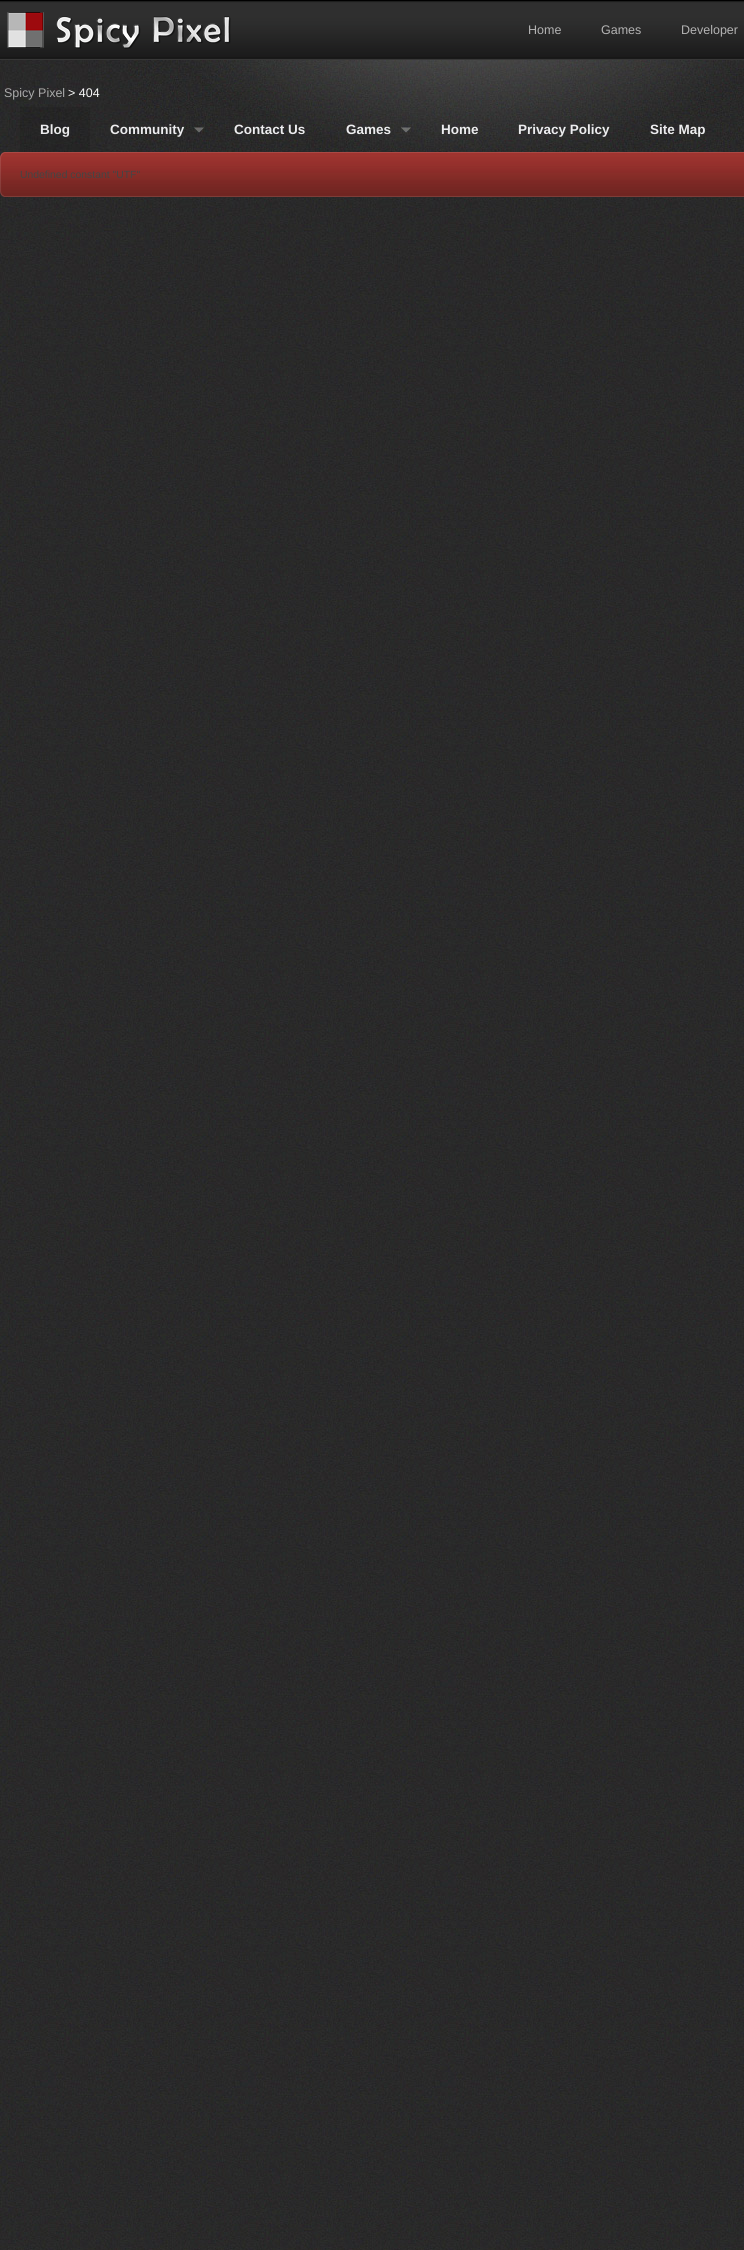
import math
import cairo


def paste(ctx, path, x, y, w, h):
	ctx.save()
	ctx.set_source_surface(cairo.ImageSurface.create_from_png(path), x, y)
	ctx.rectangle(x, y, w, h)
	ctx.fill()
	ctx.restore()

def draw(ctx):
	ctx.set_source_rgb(1, 1, 1)
	ctx.paint()
	paste(ctx, 'media/1.png', 0, 60, 744, 2190)
	ctx.set_source_rgb(0, 0, 0)
	ctx.rectangle(0, 0, 744, 1)
	ctx.fill()
	paste(ctx, 'media/2.png', 0, 1, 744, 59)
	paste(ctx, 'media/3.png', 7, 12, 224, 37)
	ctx.select_font_face('Liberation Sans')
	ctx.set_font_size(12.5)
	ctx.set_source_rgb(0.702, 0.702, 0.702)
	for x, y, s in [
		(528, 34, 'Home'),
		(601, 34, 'Games'),
		(681, 34, 'Developer'),
	]:
		ctx.move_to(x, y)
		ctx.show_text(s)
	paste(ctx, 'media/4.png', 130, 60, 614, 92)
	ctx.set_source_rgb(0.667, 0.667, 0.667)
	ctx.move_to(4, 97)
	ctx.show_text('Spicy Pixel')
	ctx.set_source_rgb(0.973, 0.973, 0.973)
	ctx.move_to(68, 97)
	ctx.show_text('> 404')
	paste(ctx, 'media/5.png', 0, 152, 744, 45)
	ctx.set_source_rgba(0, 0, 0, 0.1)
	ctx.rectangle(20, 107, 70, 45)
	ctx.fill()
	ctx.select_font_face('Liberation Sans', cairo.FONT_SLANT_NORMAL, cairo.FONT_WEIGHT_BOLD)
	ctx.set_font_size(13.5)
	ctx.set_source_rgb(0.922, 0.925, 0.933)
	ctx.move_to(40, 134)
	ctx.show_text('Blog')
	ctx.move_to(110, 134)
	ctx.show_text('Community')
	paste(ctx, 'media/6.png', 194, 127, 10, 6)
	ctx.move_to(234, 134)
	ctx.show_text('Contact Us')
	ctx.move_to(346, 134)
	ctx.show_text('Games')
	paste(ctx, 'media/7.png', 401, 127, 10, 6)
	for x, y, s in [
		(441, 134, 'Home'),
		(518, 134, 'Privacy Policy'),
		(650, 134, 'Site Map'),
	]:
		ctx.move_to(x, y)
		ctx.show_text(s)
	ctx.select_font_face('Liberation Sans')
	ctx.set_font_size(10.4)
	ctx.set_source_rgb(0.267, 0.267, 0.267)
	ctx.move_to(20, 178)
	ctx.show_text('Undefined constant "UTF"')


surface = cairo.ImageSurface(cairo.FORMAT_RGB24, 744, 2250)
ctx = cairo.Context(surface)
options = cairo.FontOptions()
options.set_hint_metrics(cairo.HINT_METRICS_OFF)
options.set_hint_style(cairo.HINT_STYLE_NONE)
ctx.set_font_options(options)
ctx.set_miter_limit(4)
draw(ctx)
surface.write_to_png('image.png')
